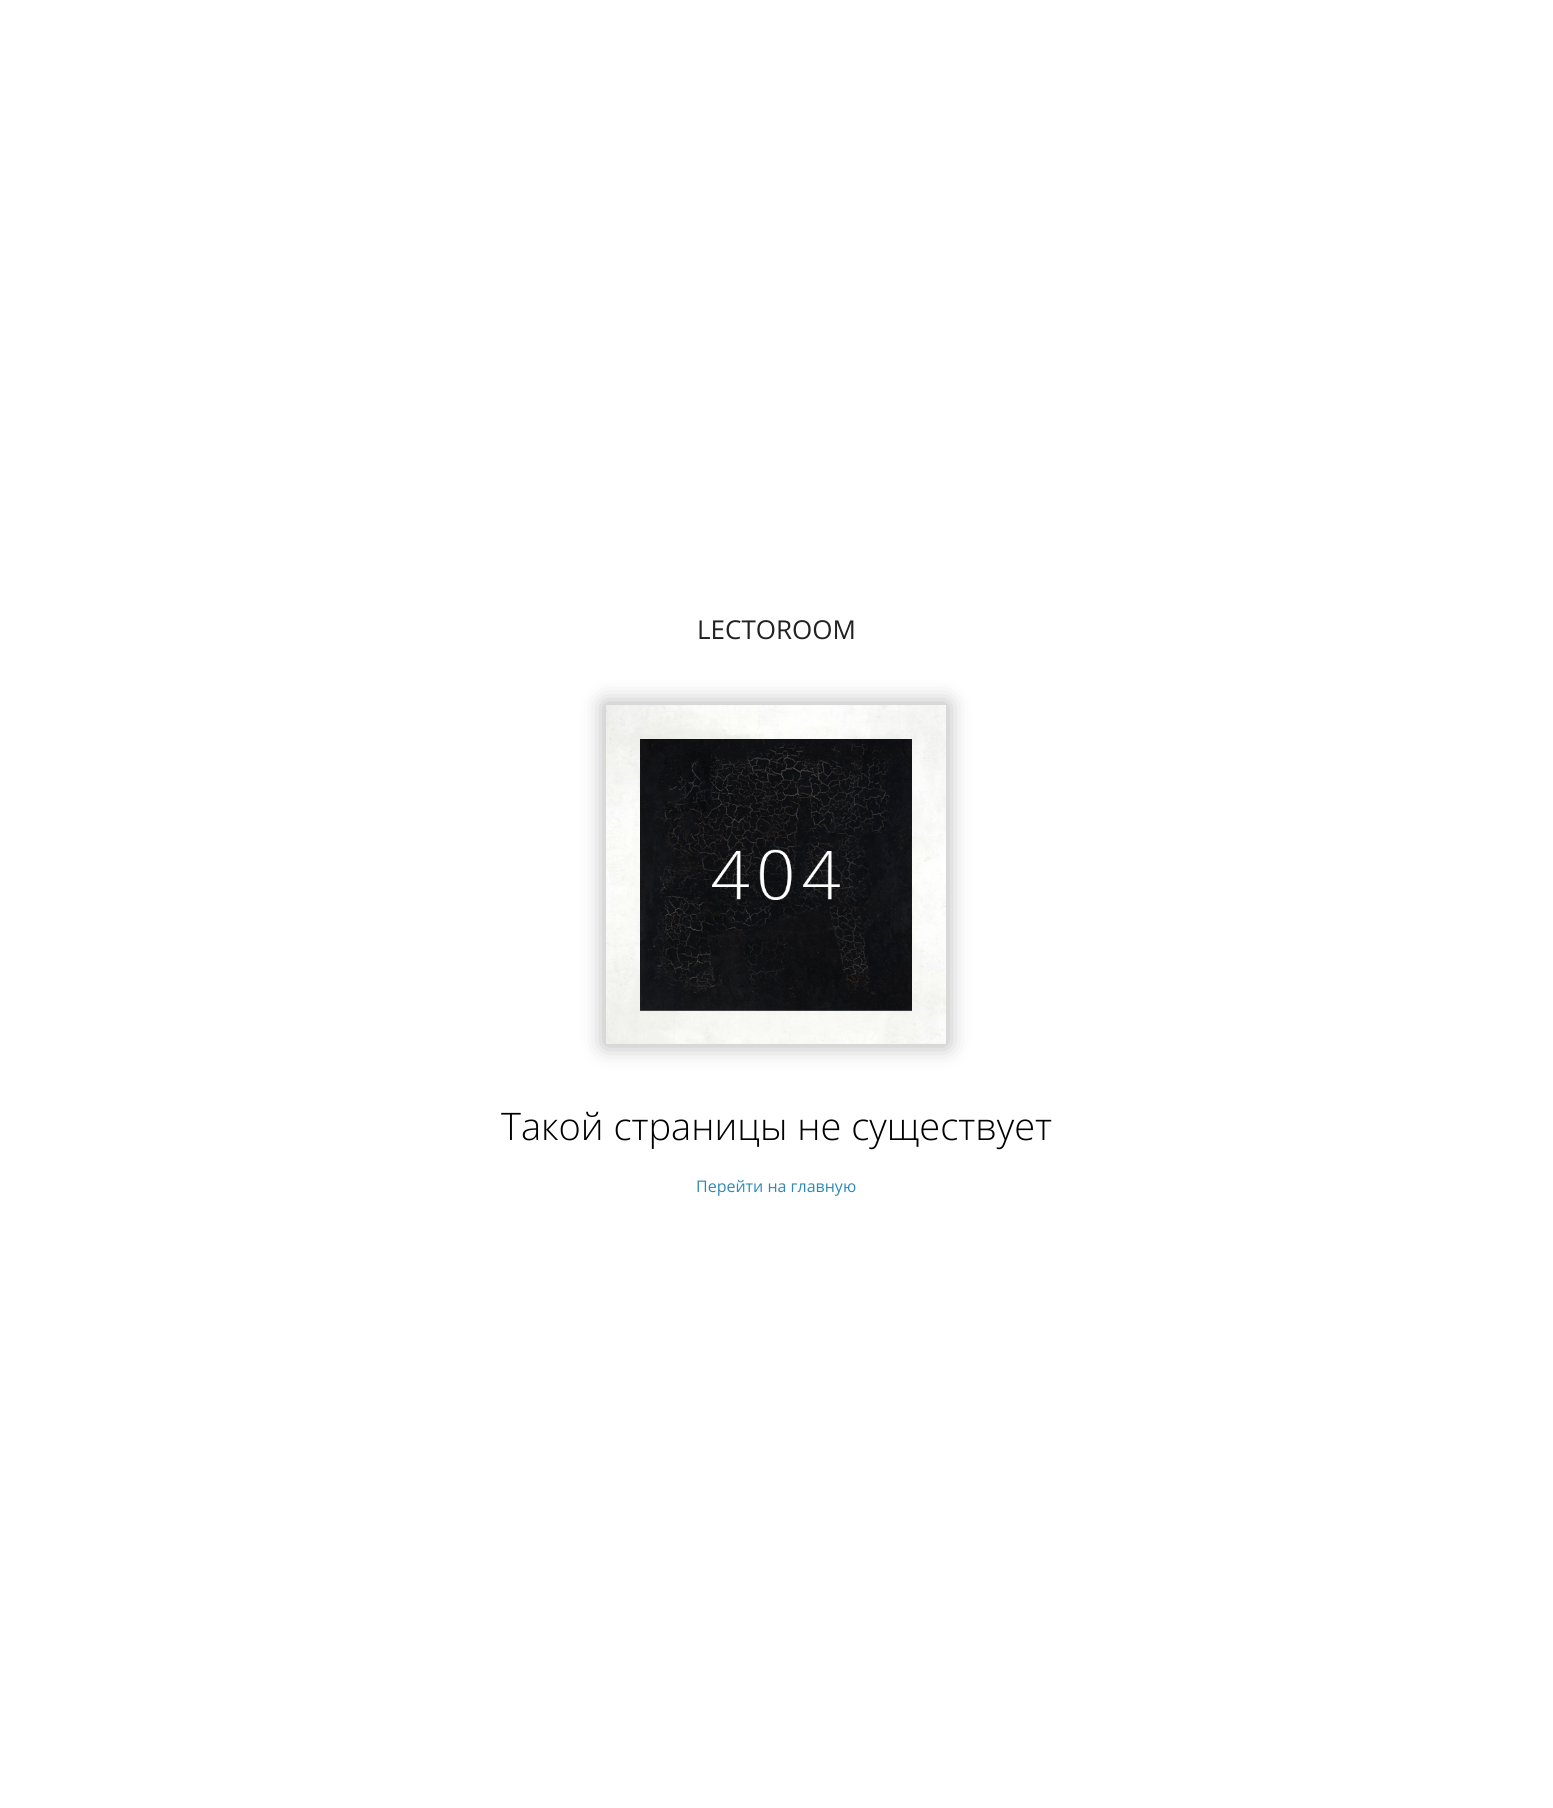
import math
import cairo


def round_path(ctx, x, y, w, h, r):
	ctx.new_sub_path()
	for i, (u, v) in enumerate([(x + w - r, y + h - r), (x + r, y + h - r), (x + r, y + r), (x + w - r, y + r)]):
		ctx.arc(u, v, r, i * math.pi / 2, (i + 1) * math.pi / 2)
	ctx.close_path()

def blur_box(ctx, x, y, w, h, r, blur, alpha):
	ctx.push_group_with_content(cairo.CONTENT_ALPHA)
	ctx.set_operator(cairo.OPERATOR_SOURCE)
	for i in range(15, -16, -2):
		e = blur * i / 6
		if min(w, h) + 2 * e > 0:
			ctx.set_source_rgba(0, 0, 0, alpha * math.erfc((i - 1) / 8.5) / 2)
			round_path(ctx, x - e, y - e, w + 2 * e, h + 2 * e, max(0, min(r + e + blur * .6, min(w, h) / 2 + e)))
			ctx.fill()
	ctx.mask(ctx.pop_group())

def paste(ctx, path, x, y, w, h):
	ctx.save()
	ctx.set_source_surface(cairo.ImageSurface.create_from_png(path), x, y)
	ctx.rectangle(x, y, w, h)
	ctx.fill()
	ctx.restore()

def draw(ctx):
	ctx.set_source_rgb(1, 1, 1)
	ctx.paint()
	ctx.select_font_face('Open Sans')
	ctx.set_font_size(26)
	ctx.set_source_rgb(0.133, 0.133, 0.133)
	ctx.move_to(697, 639)
	ctx.show_text('LECTOROOM')
	ctx.set_source_rgb(0, 0, 0)
	blur_box(ctx, 604, 703, 344, 343, 0, 11, 0.3)
	paste(ctx, 'media/1.png', 606, 705, 340, 339)
	ctx.select_font_face('Open Sans Light')
	ctx.set_font_size(38)
	ctx.set_source_rgb(0, 0, 0)
	ctx.move_to(501, 1140)
	ctx.show_text('Такой страницы не существует')
	ctx.select_font_face('Open Sans')
	ctx.set_font_size(16)
	ctx.set_source_rgb(0.176, 0.541, 0.714)
	ctx.move_to(696, 1192)
	ctx.show_text('Перейти на главную')


surface = cairo.ImageSurface(cairo.FORMAT_RGB24, 1553, 1808)
ctx = cairo.Context(surface)
options = cairo.FontOptions()
options.set_hint_metrics(cairo.HINT_METRICS_OFF)
options.set_hint_style(cairo.HINT_STYLE_NONE)
ctx.set_font_options(options)
ctx.set_miter_limit(4)
draw(ctx)
surface.write_to_png('image.png')
